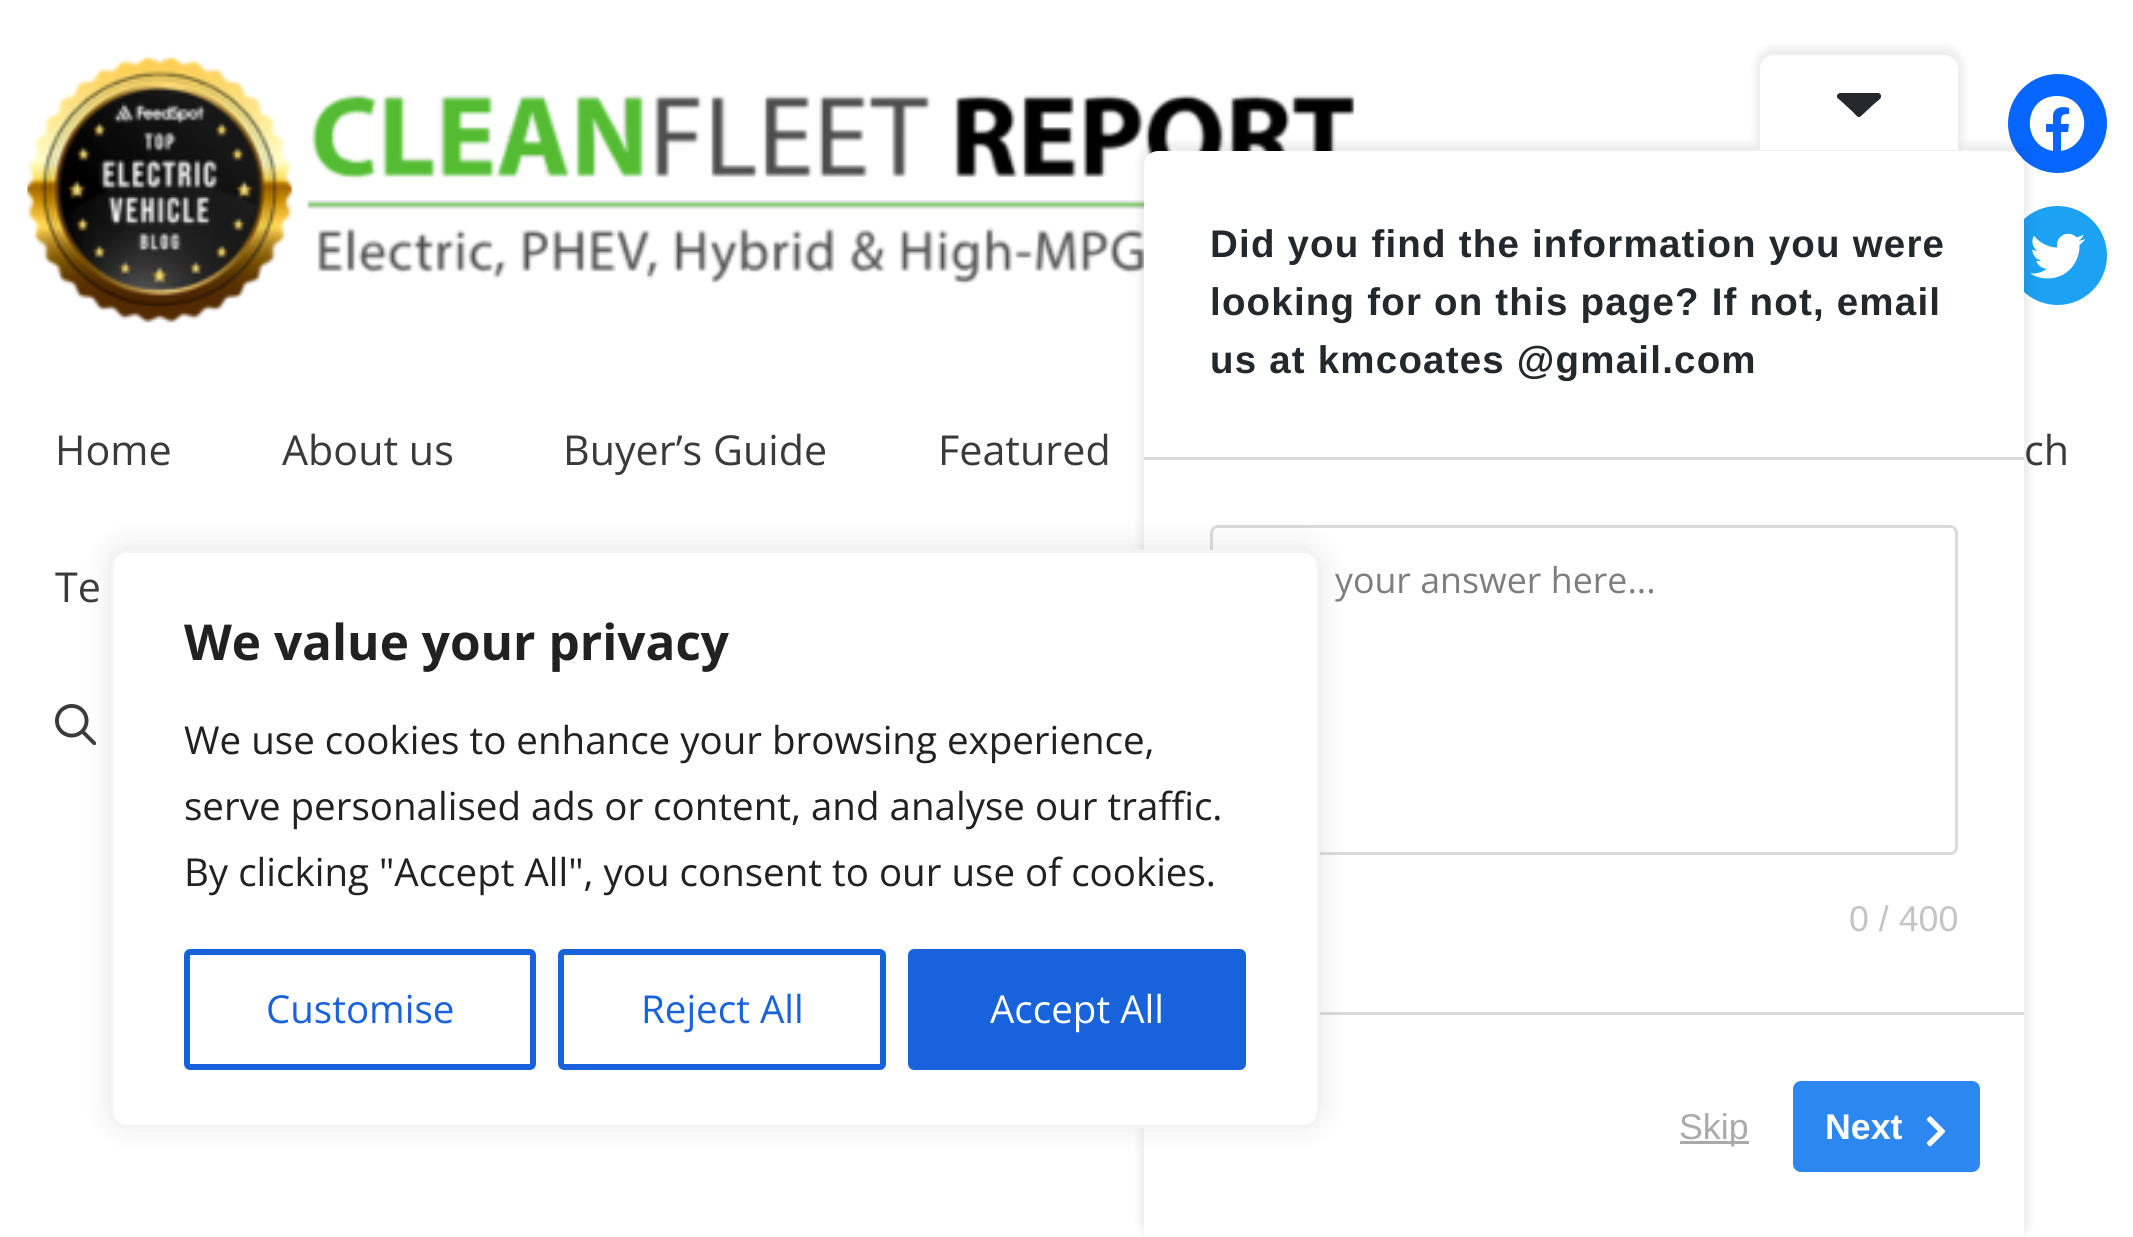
import math
import cairo


def write_spaced(ctx, x, y, s, letter, word):
	ctx.move_to(x, y)
	for ch in s:
		ctx.show_text(ch)
		ctx.rel_move_to(letter + word * (ch == ' '), 0)

def round_path(ctx, x, y, w, h, r):
	ctx.new_sub_path()
	for i, (u, v) in enumerate([(x + w - r, y + h - r), (x + r, y + h - r), (x + r, y + r), (x + w - r, y + r)]):
		ctx.arc(u, v, r, i * math.pi / 2, (i + 1) * math.pi / 2)
	ctx.close_path()

def blur_box(ctx, x, y, w, h, r, blur, alpha):
	ctx.push_group_with_content(cairo.CONTENT_ALPHA)
	ctx.set_operator(cairo.OPERATOR_SOURCE)
	for i in range(15, -16, -2):
		e = blur * i / 6
		if min(w, h) + 2 * e > 0:
			ctx.set_source_rgba(0, 0, 0, alpha * math.erfc((i - 1) / 8.5) / 2)
			round_path(ctx, x - e, y - e, w + 2 * e, h + 2 * e, max(0, min(r + e + blur * .6, min(w, h) / 2 + e)))
			ctx.fill()
	ctx.mask(ctx.pop_group())

def paste(ctx, path, x, y, w, h):
	ctx.save()
	ctx.set_source_surface(cairo.ImageSurface.create_from_png(path), x, y)
	ctx.rectangle(x, y, w, h)
	ctx.fill()
	ctx.restore()

def draw(ctx):
	ctx.set_source_rgb(1, 1, 1)
	ctx.paint()
	paste(ctx, 'media/1.png', 27, 55, 1328, 268)
	ctx.set_source_rgb(0.031, 0.4, 1)
	ctx.arc(2057.5, 123.5, 49.5, 0, 2 * math.pi)
	ctx.fill()
	ctx.set_source_rgb(1, 1, 1)
	ctx.new_path()
	ctx.move_to(2057, 96)
	ctx.curve_to(2023, 96, 2020, 145, 2053, 151)
	ctx.line_to(2053, 132)
	ctx.line_to(2046, 132)
	ctx.line_to(2046, 124)
	ctx.line_to(2053, 124)
	ctx.line_to(2053, 115)
	ctx.curve_to(2054, 107, 2062, 106, 2069, 108)
	ctx.line_to(2069, 114)
	ctx.curve_to(2061, 114, 2061, 116, 2061, 124)
	ctx.line_to(2069, 124)
	ctx.line_to(2068, 132)
	ctx.line_to(2061, 132)
	ctx.line_to(2061, 151)
	ctx.curve_to(2094, 145, 2091, 96, 2057, 96)
	ctx.close_path()
	ctx.fill()
	ctx.set_source_rgb(0.114, 0.631, 0.949)
	ctx.arc(2057.5, 255.5, 49.5, 0, 2 * math.pi)
	ctx.fill()
	paste(ctx, 'media/2.png', 2030, 233, 55, 46)
	ctx.set_source_rgb(0, 0, 0)
	blur_box(ctx, 1139, 143, 891, 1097, 19, 4, 0.07)
	ctx.set_source_rgb(1, 1, 1)
	ctx.new_path()
	ctx.move_to(1158, 151)
	ctx.line_to(2010, 151)
	ctx.curve_to(2017.5, 151, 2024, 157.5, 2024, 165)
	ctx.line_to(2024, 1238)
	ctx.line_to(1144, 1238)
	ctx.line_to(1144, 165)
	ctx.curve_to(1144, 157.5, 1150.5, 151, 1158, 151)
	ctx.close_path()
	ctx.fill()
	ctx.save()
	ctx.new_path()
	ctx.move_to(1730.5, 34.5)
	ctx.line_to(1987.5, 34.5)
	ctx.line_to(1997.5, 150)
	ctx.line_to(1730.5, 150)
	ctx.close_path()
	ctx.clip()
	ctx.set_source_rgb(0, 0, 0)
	blur_box(ctx, 1755, 47, 209, 107, 19, 4, 0.07)
	ctx.restore()
	ctx.new_path()
	ctx.move_to(1774, 55)
	ctx.line_to(1944, 55)
	ctx.curve_to(1952, 55, 1958, 61, 1958, 69)
	ctx.line_to(1958, 150)
	ctx.line_to(1760, 150)
	ctx.line_to(1760, 69)
	ctx.curve_to(1760, 61, 1766, 55, 1774, 55)
	ctx.close_path()
	ctx.fill()
	ctx.save()
	ctx.rectangle(1837, 83, 44, 44)
	ctx.clip()
	ctx.set_source_rgb(0.137, 0.157, 0.176)
	ctx.new_path()
	ctx.move_to(1840, 93)
	ctx.line_to(1879, 93)
	ctx.line_to(1881, 95)
	ctx.curve_to(1883, 98, 1876, 102, 1874, 104)
	ctx.line_to(1861, 116)
	ctx.curve_to(1858, 119, 1856, 115, 1854, 113)
	ctx.line_to(1841, 101)
	ctx.curve_to(1839, 99, 1836, 98, 1837, 95)
	ctx.curve_to(1838, 94, 1839, 93, 1840, 93)
	ctx.close_path()
	ctx.fill()
	ctx.restore()
	ctx.select_font_face('Liberation Sans', cairo.FONT_SLANT_NORMAL, cairo.FONT_WEIGHT_BOLD)
	ctx.set_font_size(38.5)
	ctx.set_source_rgb(0.137, 0.157, 0.176)
	for x, y, s in [
		(1210, 257, 'Did you find the information you were'),
		(1210, 315, 'looking for on this page? If not, email'),
		(1210, 373, 'us at kmcoates @gmail.com'),
	]:
		write_spaced(ctx, x, y, s, 1.2, 0)
	ctx.set_source_rgb(0.851, 0.851, 0.851)
	ctx.rectangle(1144, 457, 880, 3)
	ctx.fill()
	ctx.rectangle(1320, 1012, 704, 3)
	ctx.fill()
	round_path(ctx, 1211.5, 526.5, 745, 327, 6.5)
	ctx.set_source_rgb(0.855, 0.855, 0.855)
	ctx.set_line_width(3)
	ctx.stroke()
	ctx.select_font_face('Open Sans')
	ctx.set_font_size(35.75)
	ctx.set_source_rgb(0.494, 0.494, 0.494)
	ctx.move_to(1335, 593)
	ctx.show_text('your answer here...')
	ctx.select_font_face('Liberation Sans')
	ctx.set_source_rgb(0.769, 0.769, 0.769)
	ctx.move_to(1849, 931)
	ctx.show_text('0 / 400')
	ctx.set_source_rgb(0.667, 0.667, 0.667)
	ctx.rectangle(1680, 1141, 69, 3)
	ctx.fill()
	ctx.move_to(1679, 1139)
	ctx.show_text('Skip')
	ctx.set_source_rgb(0.176, 0.529, 0.945)
	round_path(ctx, 1793, 1081, 187, 91, 8)
	ctx.fill()
	ctx.select_font_face('Liberation Sans', cairo.FONT_SLANT_NORMAL, cairo.FONT_WEIGHT_BOLD)
	ctx.set_source_rgb(1, 1, 1)
	ctx.move_to(1825, 1139)
	ctx.show_text('Next')
	paste(ctx, 'media/3.png', 1926, 1116, 20, 31)
	ctx.select_font_face('Open Sans')
	ctx.set_font_size(41.25)
	ctx.set_source_rgb(0.227, 0.227, 0.227)
	for x, y, s in [
		(55, 465, 'Home'),
		(282, 465, 'About us'),
		(563, 465, 'Buyer’s Guide'),
		(938, 465, 'Featured'),
		(2024, 465, 'ch'),
		(55, 602, 'Te'),
	]:
		ctx.move_to(x, y)
		ctx.show_text(s)
	paste(ctx, 'media/4.png', 55, 704, 41, 41)
	ctx.set_source_rgb(0.675, 0.671, 0.671)
	blur_box(ctx, 110, 547, 1210, 578, 17, 14, 0.3)
	ctx.set_source_rgb(1, 1, 1)
	round_path(ctx, 111.5, 551.5, 1207, 575, 15.5)
	ctx.fill_preserve()
	ctx.set_source_rgb(0.957, 0.957, 0.957)
	ctx.stroke()
	ctx.select_font_face('Open Sans', cairo.FONT_SLANT_NORMAL, cairo.FONT_WEIGHT_BOLD)
	ctx.set_font_size(49.5)
	ctx.set_source_rgb(0.129, 0.129, 0.129)
	ctx.move_to(184, 660)
	ctx.show_text('We value your privacy')
	ctx.select_font_face('Open Sans')
	ctx.set_font_size(38.5)
	for x, y, s in [
		(184, 754, 'We use cookies to enhance your browsing experience,'),
		(184, 820, 'serve personalised ads or content, and analyse our traffic.'),
		(184, 886, 'By clicking "Accept All", you consent to our use of cookies.'),
	]:
		ctx.move_to(x, y)
		ctx.show_text(s)
	round_path(ctx, 187, 952, 346, 115, 3)
	ctx.set_source_rgb(0.094, 0.388, 0.863)
	ctx.set_line_width(6)
	ctx.stroke()
	ctx.move_to(266, 1023)
	ctx.show_text('Customise')
	round_path(ctx, 561, 952, 322, 115, 3)
	ctx.stroke()
	ctx.move_to(641, 1023)
	ctx.show_text('Reject All')
	round_path(ctx, 911, 952, 332, 115, 3)
	ctx.fill_preserve()
	ctx.stroke()
	ctx.set_source_rgb(1, 1, 1)
	ctx.move_to(990, 1023)
	ctx.show_text('Accept All')


surface = cairo.ImageSurface(cairo.FORMAT_RGB24, 2133, 1237)
ctx = cairo.Context(surface)
options = cairo.FontOptions()
options.set_hint_metrics(cairo.HINT_METRICS_OFF)
options.set_hint_style(cairo.HINT_STYLE_NONE)
ctx.set_font_options(options)
ctx.set_miter_limit(4)
draw(ctx)
surface.write_to_png('image.png')
